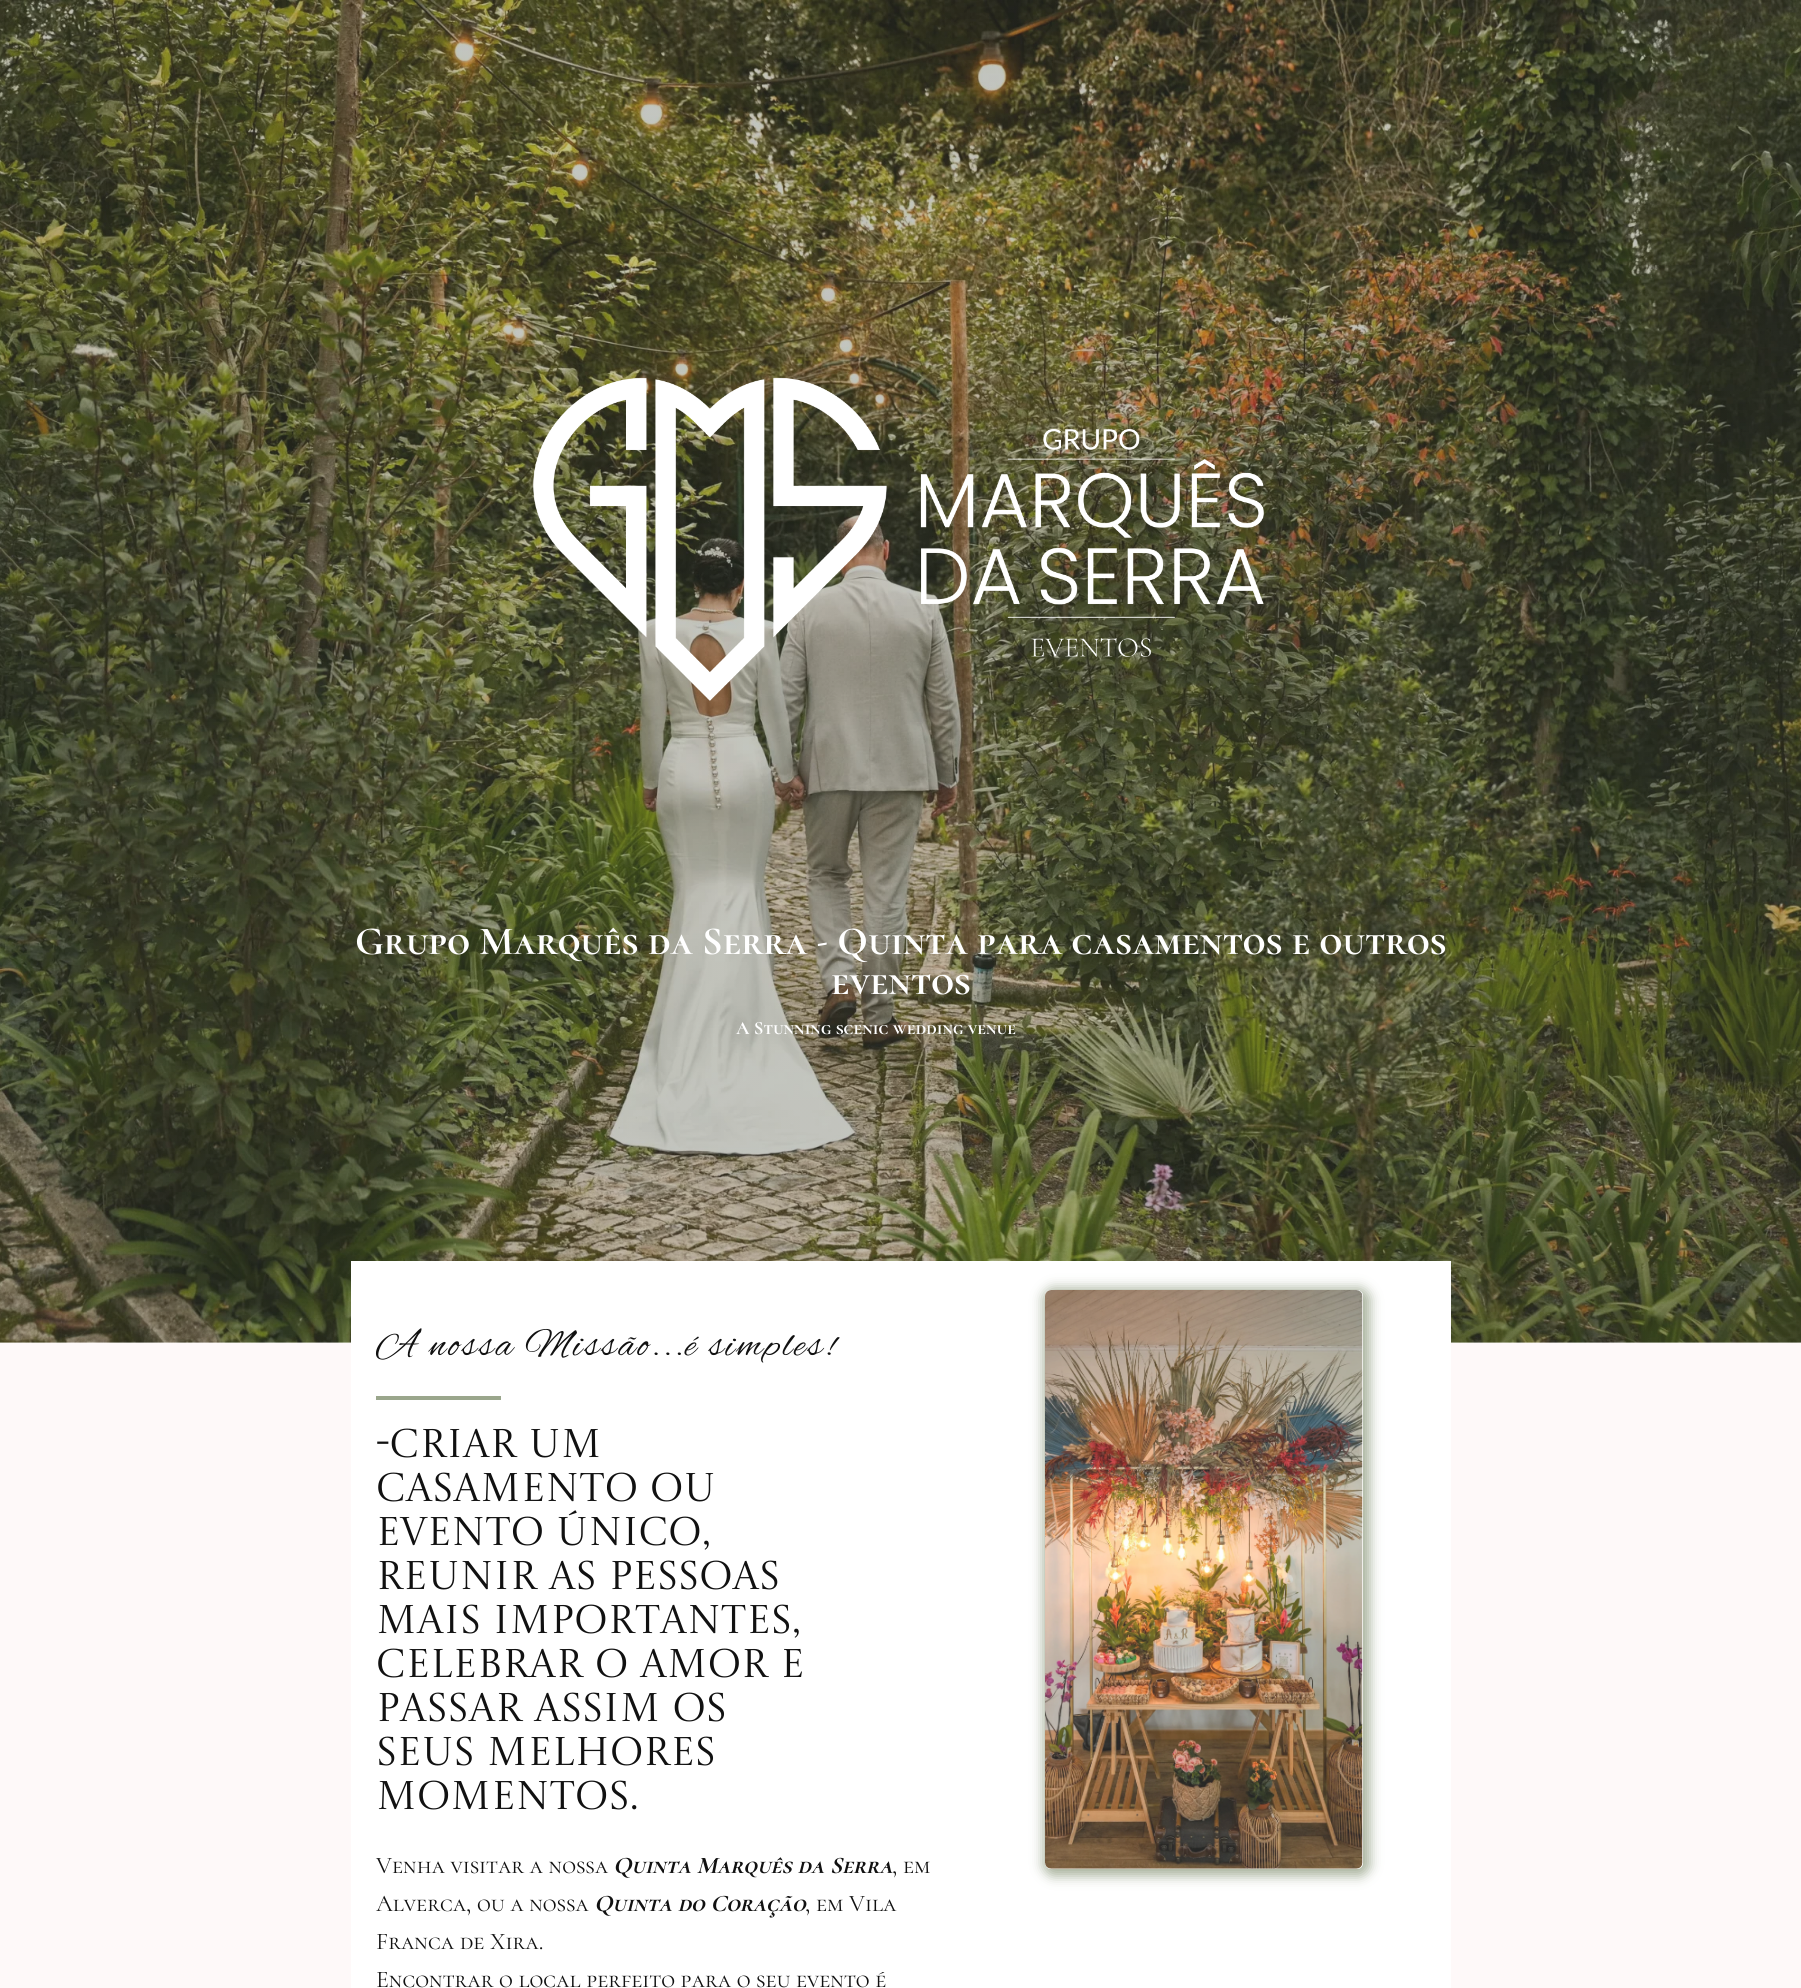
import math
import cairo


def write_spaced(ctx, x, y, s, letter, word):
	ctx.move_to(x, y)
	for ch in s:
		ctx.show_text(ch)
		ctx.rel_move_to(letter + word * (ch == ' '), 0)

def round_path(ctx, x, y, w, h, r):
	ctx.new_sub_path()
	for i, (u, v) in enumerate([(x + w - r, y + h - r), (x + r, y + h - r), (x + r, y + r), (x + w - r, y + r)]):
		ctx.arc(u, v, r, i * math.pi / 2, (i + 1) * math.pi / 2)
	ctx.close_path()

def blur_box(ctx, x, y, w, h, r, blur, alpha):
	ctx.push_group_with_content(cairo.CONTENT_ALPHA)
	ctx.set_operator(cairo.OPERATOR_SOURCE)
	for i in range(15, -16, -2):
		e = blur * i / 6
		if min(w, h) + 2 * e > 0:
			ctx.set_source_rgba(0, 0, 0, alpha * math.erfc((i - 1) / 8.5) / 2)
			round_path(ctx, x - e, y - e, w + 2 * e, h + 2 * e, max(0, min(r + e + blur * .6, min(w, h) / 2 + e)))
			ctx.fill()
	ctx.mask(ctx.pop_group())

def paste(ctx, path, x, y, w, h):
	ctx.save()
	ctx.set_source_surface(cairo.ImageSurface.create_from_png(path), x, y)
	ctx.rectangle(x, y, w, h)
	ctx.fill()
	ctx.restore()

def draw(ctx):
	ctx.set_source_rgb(1, 1, 1)
	ctx.paint()
	paste(ctx, 'media/1.png', 0, 0, 1801, 1343)
	paste(ctx, 'media/2.png', 533, 377, 731, 324)
	ctx.select_font_face('Cormorant SC', cairo.FONT_SLANT_NORMAL, cairo.FONT_WEIGHT_BOLD)
	ctx.set_font_size(40)
	ctx.set_source_rgb(1, 1, 1)
	ctx.move_to(355, 954)
	ctx.show_text('Grupo Marquês da Serra - Quinta para casamentos e outros')
	ctx.move_to(831, 994)
	ctx.show_text('eventos')
	ctx.set_font_size(18.75)
	ctx.move_to(736, 1034)
	ctx.show_text('A Stunning scenic wedding venue')
	ctx.set_source_rgb(0.996, 0.976, 0.973)
	ctx.rectangle(0, 1343, 1801, 645)
	ctx.fill()
	ctx.set_source_rgb(1, 1, 1)
	ctx.rectangle(351, 1261, 1100, 727)
	ctx.fill()
	ctx.select_font_face('Alex Brush')
	ctx.set_font_size(40)
	ctx.set_source_rgb(0.067, 0.067, 0.067)
	write_spaced(ctx, 376, 1355, 'A nossa Missão...é simples!', 2.5, 0)
	ctx.set_source_rgb(0.604, 0.651, 0.549)
	ctx.rectangle(376, 1396, 125, 4)
	ctx.fill()
	ctx.select_font_face('Castoro Titling')
	ctx.set_source_rgb(0.067, 0.067, 0.067)
	for x, y, s in [
		(376, 1457, '-Criar um'),
		(376, 1501, 'casamento ou'),
		(376, 1545, 'evento único,'),
		(376, 1589, 'reunir as pessoas'),
		(376, 1633, 'mais importantes,'),
		(376, 1677, 'celebrar o amor e'),
		(376, 1721, 'passar assim os'),
		(376, 1765, 'seus melhores'),
		(376, 1809, 'momentos.'),
	]:
		ctx.move_to(x, y)
		ctx.show_text(s)
	ctx.select_font_face('Cormorant SC')
	ctx.set_font_size(23.9)
	ctx.move_to(376, 1873)
	ctx.show_text('Venha visitar a nossa')
	ctx.select_font_face('Cormorant SC', cairo.FONT_SLANT_ITALIC, cairo.FONT_WEIGHT_BOLD)
	ctx.move_to(613, 1873)
	ctx.show_text('Quinta Marquês da Serra')
	ctx.select_font_face('Cormorant SC')
	ctx.move_to(892, 1873)
	ctx.show_text(', em')
	ctx.move_to(376, 1911)
	ctx.show_text('Alverca, ou a nossa')
	ctx.select_font_face('Cormorant SC', cairo.FONT_SLANT_ITALIC, cairo.FONT_WEIGHT_BOLD)
	ctx.move_to(594, 1911)
	ctx.show_text('Quinta do Coração')
	ctx.select_font_face('Cormorant SC')
	for x, y, s in [
		(805, 1911, ', em Vila'),
		(376, 1949, 'Franca de Xira.'),
		(376, 1987, 'Encontrar o local perfeito para o seu evento é'),
	]:
		ctx.move_to(x, y)
		ctx.show_text(s)
	ctx.save()
	ctx.set_fill_rule(cairo.FILL_RULE_EVEN_ODD)
	ctx.new_path()
	ctx.move_to(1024, 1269)
	ctx.line_to(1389, 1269)
	ctx.line_to(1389, 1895)
	ctx.line_to(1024, 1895)
	ctx.close_path()
	ctx.move_to(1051, 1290)
	ctx.line_to(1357, 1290)
	ctx.curve_to(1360.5, 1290, 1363, 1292.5, 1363, 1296)
	ctx.line_to(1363, 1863)
	ctx.curve_to(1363, 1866.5, 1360.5, 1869, 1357, 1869)
	ctx.line_to(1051, 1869)
	ctx.curve_to(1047.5, 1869, 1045, 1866.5, 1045, 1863)
	ctx.line_to(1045, 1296)
	ctx.curve_to(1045, 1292.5, 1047.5, 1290, 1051, 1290)
	ctx.close_path()
	ctx.clip()
	ctx.set_source_rgb(0.663, 0.702, 0.616)
	blur_box(ctx, 1043, 1288, 327, 588, 11, 6, 1)
	ctx.restore()
	paste(ctx, 'media/3.png', 1045, 1290, 318, 579)


surface = cairo.ImageSurface(cairo.FORMAT_RGB24, 1801, 1988)
ctx = cairo.Context(surface)
options = cairo.FontOptions()
options.set_hint_metrics(cairo.HINT_METRICS_OFF)
options.set_hint_style(cairo.HINT_STYLE_NONE)
ctx.set_font_options(options)
ctx.set_miter_limit(4)
draw(ctx)
surface.write_to_png('image.png')
